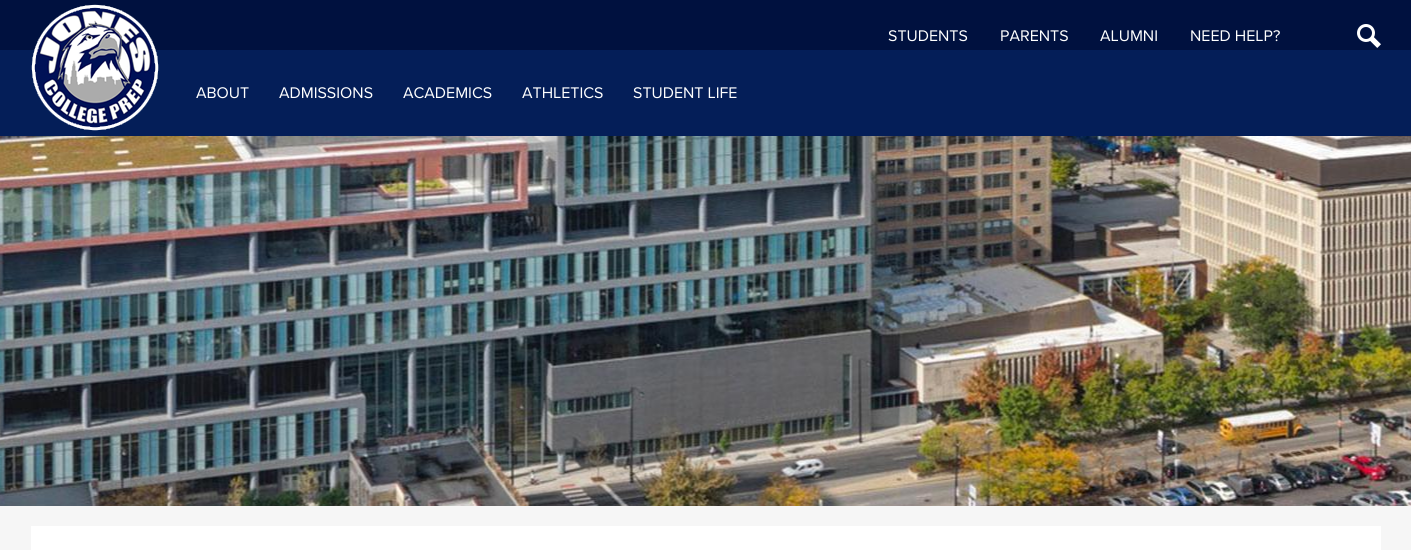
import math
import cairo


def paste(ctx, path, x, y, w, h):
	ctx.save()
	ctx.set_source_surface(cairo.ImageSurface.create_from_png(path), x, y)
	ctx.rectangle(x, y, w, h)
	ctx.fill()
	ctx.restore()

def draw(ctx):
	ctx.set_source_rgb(0.961, 0.961, 0.961)
	ctx.paint()
	ctx.set_source_rgb(0.016, 0.118, 0.345)
	ctx.rectangle(0, 50, 1411, 86)
	ctx.fill()
	ctx.set_source_rgb(0, 0.067, 0.247)
	ctx.rectangle(0, 0, 1411, 50)
	ctx.fill()
	ctx.select_font_face('Proxima Nova')
	ctx.set_font_size(16)
	ctx.set_source_rgb(1, 1, 1)
	for x, y, s in [
		(888, 41, 'STUDENTS'),
		(1000, 41, 'PARENTS'),
		(1100, 41, 'ALUMNI'),
		(1190, 41, 'NEED HELP?'),
	]:
		ctx.move_to(x, y)
		ctx.show_text(s)
	paste(ctx, 'media/1.png', 1357, 24, 24, 24)
	paste(ctx, 'media/2.png', 31, 4, 128, 127)
	for x, y, s in [
		(196, 98, 'ABOUT'),
		(279, 98, 'ADMISSIONS'),
		(403, 98, 'ACADEMICS'),
		(522, 98, 'ATHLETICS'),
		(633, 98, 'STUDENT LIFE'),
	]:
		ctx.move_to(x, y)
		ctx.show_text(s)
	paste(ctx, 'media/3.png', 0, 136, 1411, 370)
	ctx.rectangle(31, 526, 1350, 24)
	ctx.fill()


surface = cairo.ImageSurface(cairo.FORMAT_RGB24, 1411, 550)
ctx = cairo.Context(surface)
options = cairo.FontOptions()
options.set_hint_metrics(cairo.HINT_METRICS_OFF)
options.set_hint_style(cairo.HINT_STYLE_NONE)
ctx.set_font_options(options)
ctx.set_miter_limit(4)
draw(ctx)
surface.write_to_png('image.png')
